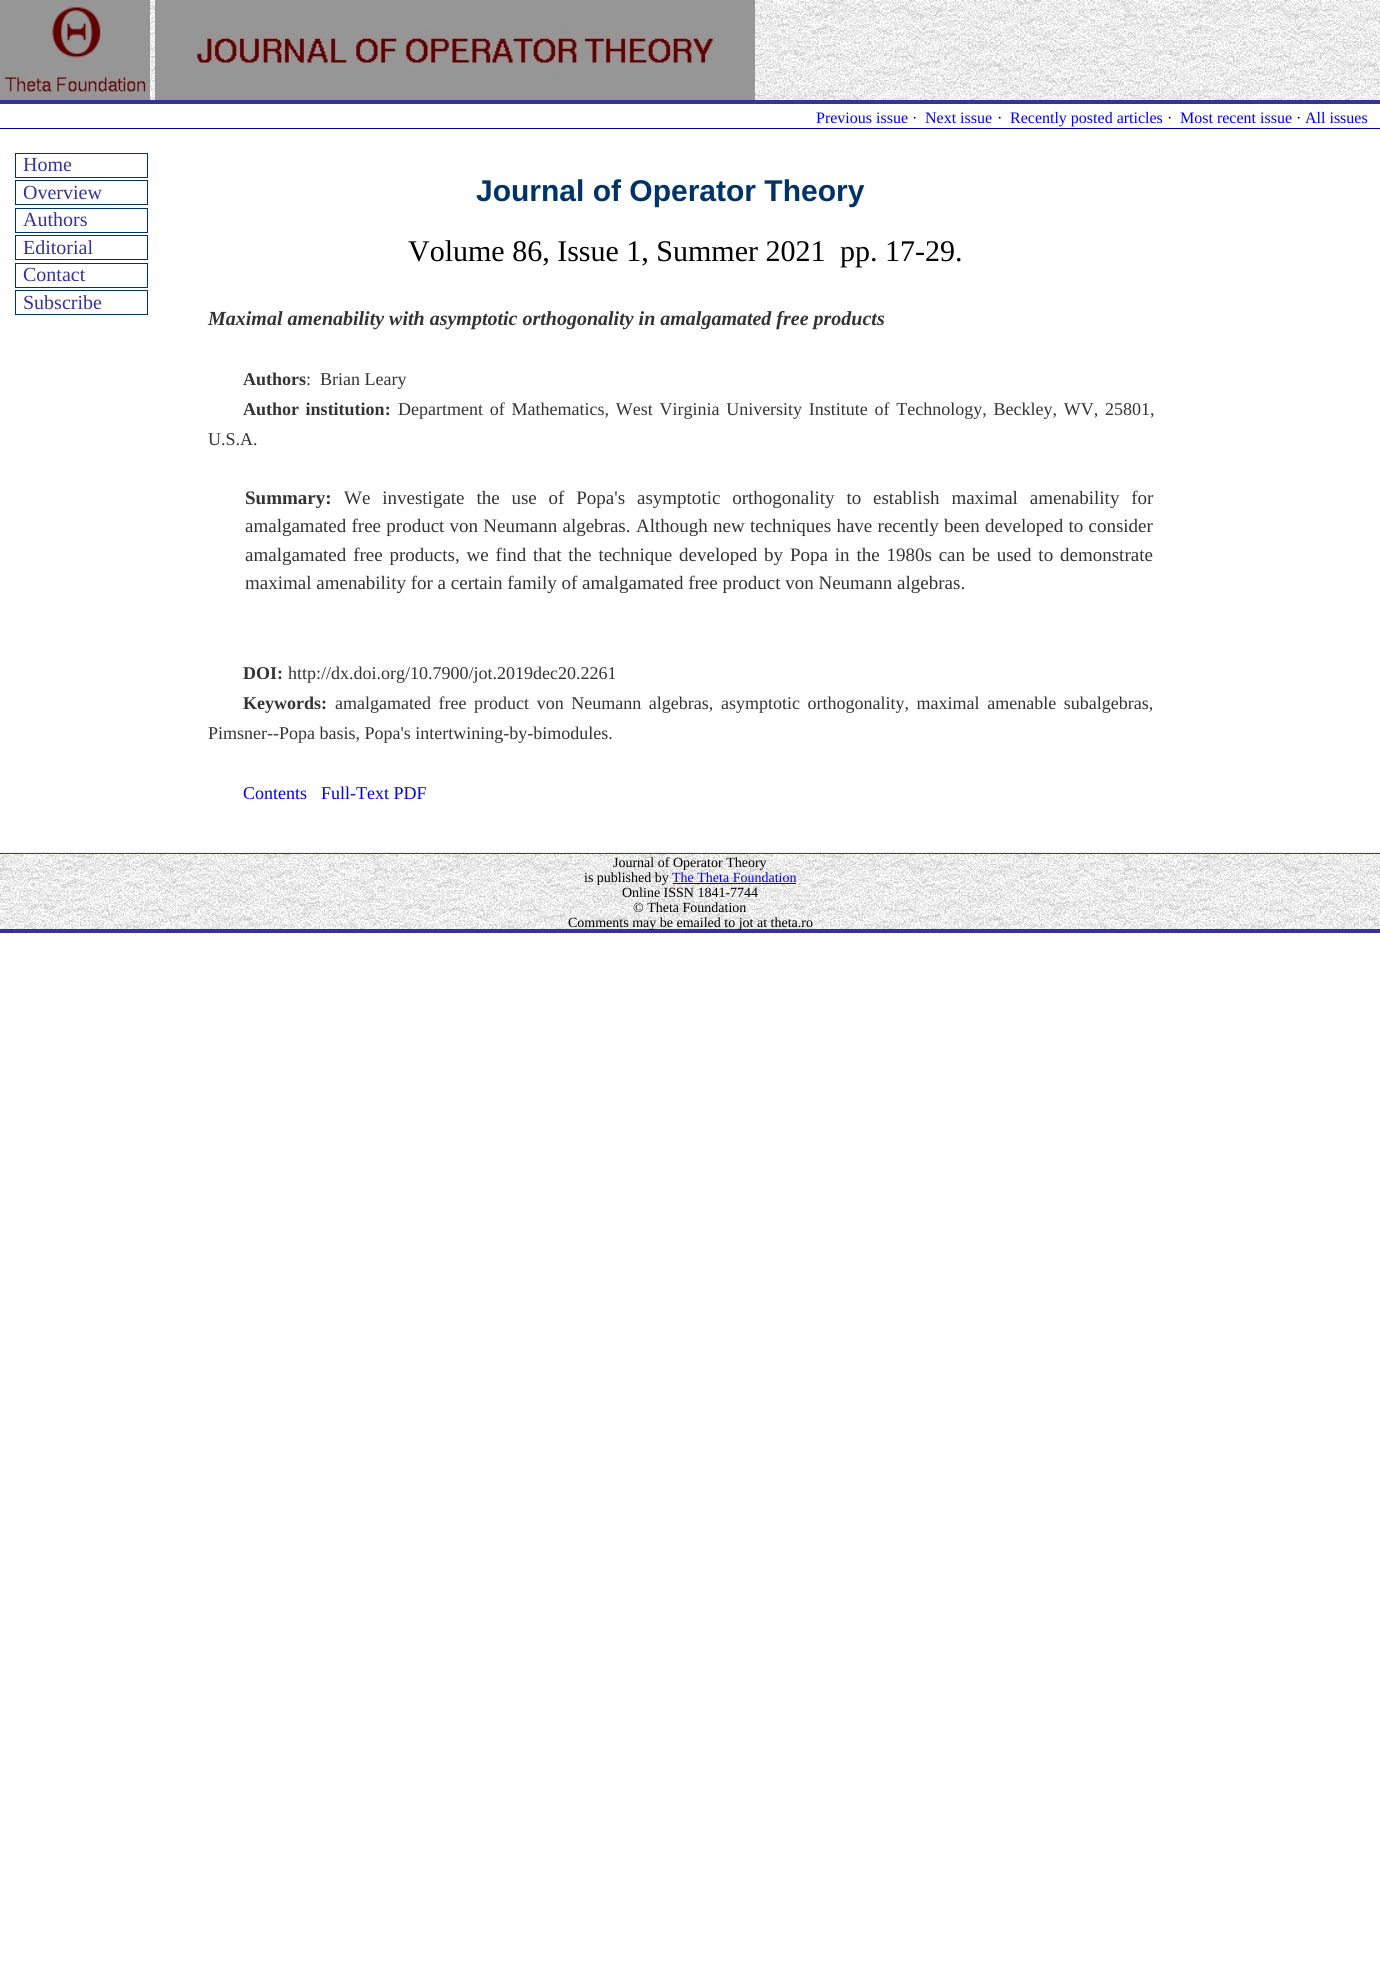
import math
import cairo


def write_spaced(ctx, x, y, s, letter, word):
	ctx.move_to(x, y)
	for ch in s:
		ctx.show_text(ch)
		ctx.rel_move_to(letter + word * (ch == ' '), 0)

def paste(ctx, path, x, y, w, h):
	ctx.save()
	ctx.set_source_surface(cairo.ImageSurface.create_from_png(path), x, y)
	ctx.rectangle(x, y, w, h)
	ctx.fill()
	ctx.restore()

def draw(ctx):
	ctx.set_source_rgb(1, 1, 1)
	ctx.paint()
	paste(ctx, 'media/1.png', 150, 0, 1230, 100)
	ctx.set_source_rgb(0.2, 0.2, 0.6)
	ctx.rectangle(0, 100, 1380, 4)
	ctx.fill()
	paste(ctx, 'media/2.png', 0, 0, 150, 100)
	paste(ctx, 'media/3.png', 155, 0, 600, 100)
	ctx.set_source_rgb(0, 0, 0.6)
	ctx.rectangle(0, 128, 1380, 1)
	ctx.fill()
	ctx.select_font_face('Liberation Serif')
	ctx.set_font_size(16)
	ctx.set_source_rgb(0, 0, 1)
	ctx.move_to(816, 123)
	ctx.show_text('Previous issue')
	ctx.set_source_rgb(0, 0, 0)
	ctx.move_to(912, 123)
	ctx.show_text('·')
	ctx.set_source_rgb(0, 0, 1)
	ctx.move_to(925, 123)
	ctx.show_text('Next issue')
	ctx.set_source_rgb(0, 0, 0)
	ctx.move_to(997, 123)
	ctx.show_text('·')
	ctx.set_source_rgb(0, 0, 1)
	ctx.move_to(1010, 123)
	ctx.show_text('Recently posted articles')
	ctx.set_source_rgb(0, 0, 0)
	ctx.move_to(1167, 123)
	ctx.show_text('·')
	ctx.set_source_rgb(0, 0, 1)
	ctx.move_to(1180, 123)
	ctx.show_text('Most recent issue')
	ctx.set_source_rgb(0, 0, 0)
	ctx.move_to(1296, 123)
	ctx.show_text('·')
	ctx.set_source_rgb(0, 0, 1)
	ctx.move_to(1305, 123)
	ctx.show_text('All issues')
	ctx.rectangle(15.5, 153.5, 132, 24)
	ctx.set_source_rgb(0, 0.2, 0.4)
	ctx.set_line_width(1)
	ctx.stroke()
	ctx.set_font_size(20)
	ctx.set_source_rgb(0.2, 0.2, 0.6)
	ctx.move_to(23, 171)
	ctx.show_text('Home')
	ctx.rectangle(15.5, 180.5, 132, 24)
	ctx.set_source_rgb(0, 0.2, 0.4)
	ctx.stroke()
	ctx.set_source_rgb(0.2, 0.2, 0.6)
	ctx.move_to(23, 199)
	ctx.show_text('Overview')
	ctx.rectangle(15.5, 208.5, 132, 24)
	ctx.set_source_rgb(0, 0.2, 0.4)
	ctx.stroke()
	ctx.set_source_rgb(0.2, 0.2, 0.6)
	ctx.move_to(23, 226)
	ctx.show_text('Authors')
	ctx.rectangle(15.5, 235.5, 132, 24)
	ctx.set_source_rgb(0, 0.2, 0.4)
	ctx.stroke()
	ctx.set_source_rgb(0.2, 0.2, 0.6)
	ctx.move_to(23, 254)
	ctx.show_text('Editorial')
	ctx.rectangle(15.5, 263.5, 132, 24)
	ctx.set_source_rgb(0, 0.2, 0.4)
	ctx.stroke()
	ctx.set_source_rgb(0.2, 0.2, 0.6)
	ctx.move_to(23, 281)
	ctx.show_text('Contact')
	ctx.rectangle(15.5, 290.5, 132, 24)
	ctx.set_source_rgb(0, 0.2, 0.4)
	ctx.stroke()
	ctx.set_source_rgb(0.2, 0.2, 0.6)
	ctx.move_to(23, 309)
	ctx.show_text('Subscribe')
	ctx.select_font_face('Liberation Sans', cairo.FONT_SLANT_NORMAL, cairo.FONT_WEIGHT_BOLD)
	ctx.set_font_size(30)
	ctx.set_source_rgb(0, 0.2, 0.4)
	ctx.move_to(476, 201)
	ctx.show_text('Journal of Operator Theory')
	ctx.select_font_face('Liberation Serif')
	ctx.set_source_rgb(0, 0, 0)
	ctx.move_to(408, 261)
	ctx.show_text('Volume 86, Issue 1, Summer 2021')
	ctx.move_to(840, 261)
	ctx.show_text('pp. 17-29.')
	ctx.select_font_face('Liberation Serif', cairo.FONT_SLANT_ITALIC, cairo.FONT_WEIGHT_BOLD)
	ctx.set_font_size(20)
	ctx.set_source_rgb(0.2, 0.2, 0.2)
	ctx.move_to(208, 325)
	ctx.show_text('Maximal amenability with asymptotic orthogonality in amalgamated free products')
	ctx.select_font_face('Liberation Serif', cairo.FONT_SLANT_NORMAL, cairo.FONT_WEIGHT_BOLD)
	ctx.set_font_size(18)
	ctx.move_to(243, 385)
	ctx.show_text('Authors')
	ctx.select_font_face('Liberation Serif')
	ctx.move_to(306, 385)
	ctx.show_text(':')
	ctx.move_to(320, 385)
	ctx.show_text('Brian Leary')
	ctx.select_font_face('Liberation Serif', cairo.FONT_SLANT_NORMAL, cairo.FONT_WEIGHT_BOLD)
	write_spaced(ctx, 243, 415, 'Author institution:', 0, 2.1)
	ctx.select_font_face('Liberation Serif')
	write_spaced(ctx, 398, 415, 'Department of Mathematics, West Virginia University Institute of Technology, Beckley, WV, 25801,', 0, 2.25)
	ctx.move_to(208, 445)
	ctx.show_text('U.S.A.')
	ctx.select_font_face('Liberation Serif', cairo.FONT_SLANT_NORMAL, cairo.FONT_WEIGHT_BOLD)
	ctx.set_font_size(19)
	ctx.move_to(245, 504)
	ctx.show_text('Summary:')
	ctx.select_font_face('Liberation Serif')
	write_spaced(ctx, 344, 504, 'We investigate the use of Popa\'s asymptotic orthogonality to establish maximal amenability for', 0, 7.1)
	write_spaced(ctx, 245, 532, 'amalgamated free product von Neumann algebras.', 0, 0.5)
	write_spaced(ctx, 636, 532, 'Although new techniques have recently been developed to consider', 0, 0.5)
	write_spaced(ctx, 245, 561, 'amalgamated free products, we find that the technique developed by Popa in the 1980s can be used to demonstrate', 0, 2.1)
	ctx.move_to(245, 589)
	ctx.show_text('maximal amenability for a certain family of amalgamated free product von Neumann algebras.')
	ctx.select_font_face('Liberation Serif', cairo.FONT_SLANT_NORMAL, cairo.FONT_WEIGHT_BOLD)
	ctx.set_font_size(18)
	ctx.move_to(243, 679)
	ctx.show_text('DOI:')
	ctx.select_font_face('Liberation Serif')
	ctx.move_to(288, 679)
	ctx.show_text('http://dx.doi.org/10.7900/jot.2019dec20.2261')
	ctx.select_font_face('Liberation Serif', cairo.FONT_SLANT_NORMAL, cairo.FONT_WEIGHT_BOLD)
	ctx.move_to(243, 709)
	ctx.show_text('Keywords:')
	ctx.select_font_face('Liberation Serif')
	write_spaced(ctx, 335, 709, 'amalgamated free product von Neumann algebras, asymptotic orthogonality, maximal amenable subalgebras,', 0, 3.1)
	ctx.move_to(208, 739)
	ctx.show_text('Pimsner--Popa basis, Popa\'s intertwining-by-bimodules.')
	ctx.set_source_rgb(0, 0, 0.933)
	ctx.move_to(243, 799)
	ctx.show_text('Contents')
	ctx.move_to(321, 799)
	ctx.show_text('Full-Text PDF')
	paste(ctx, 'media/4.png', 0, 852, 1380, 77)
	ctx.set_source_rgb(0.2, 0.2, 0.6)
	ctx.rectangle(0, 853, 1380, 1)
	ctx.fill()
	ctx.rectangle(0, 929, 1380, 4)
	ctx.fill()
	ctx.set_font_size(14)
	ctx.set_source_rgb(0, 0, 0)
	ctx.move_to(613, 867)
	ctx.show_text('Journal of Operator Theory')
	ctx.move_to(584, 882)
	ctx.show_text('is published by')
	ctx.set_source_rgb(0, 0, 0.933)
	ctx.move_to(672, 882)
	ctx.show_text('The Theta Foundation')
	ctx.rectangle(673, 883, 123, 1)
	ctx.fill()
	ctx.set_source_rgb(0, 0, 0)
	for x, y, s in [
		(622, 897, 'Online ISSN 1841-7744'),
		(633, 912, '© Theta Foundation'),
		(568, 927, 'Comments may be emailed to jot at theta.ro'),
	]:
		ctx.move_to(x, y)
		ctx.show_text(s)


surface = cairo.ImageSurface(cairo.FORMAT_RGB24, 1380, 1986)
ctx = cairo.Context(surface)
options = cairo.FontOptions()
options.set_hint_metrics(cairo.HINT_METRICS_OFF)
options.set_hint_style(cairo.HINT_STYLE_NONE)
ctx.set_font_options(options)
ctx.set_miter_limit(4)
draw(ctx)
surface.write_to_png('image.png')
